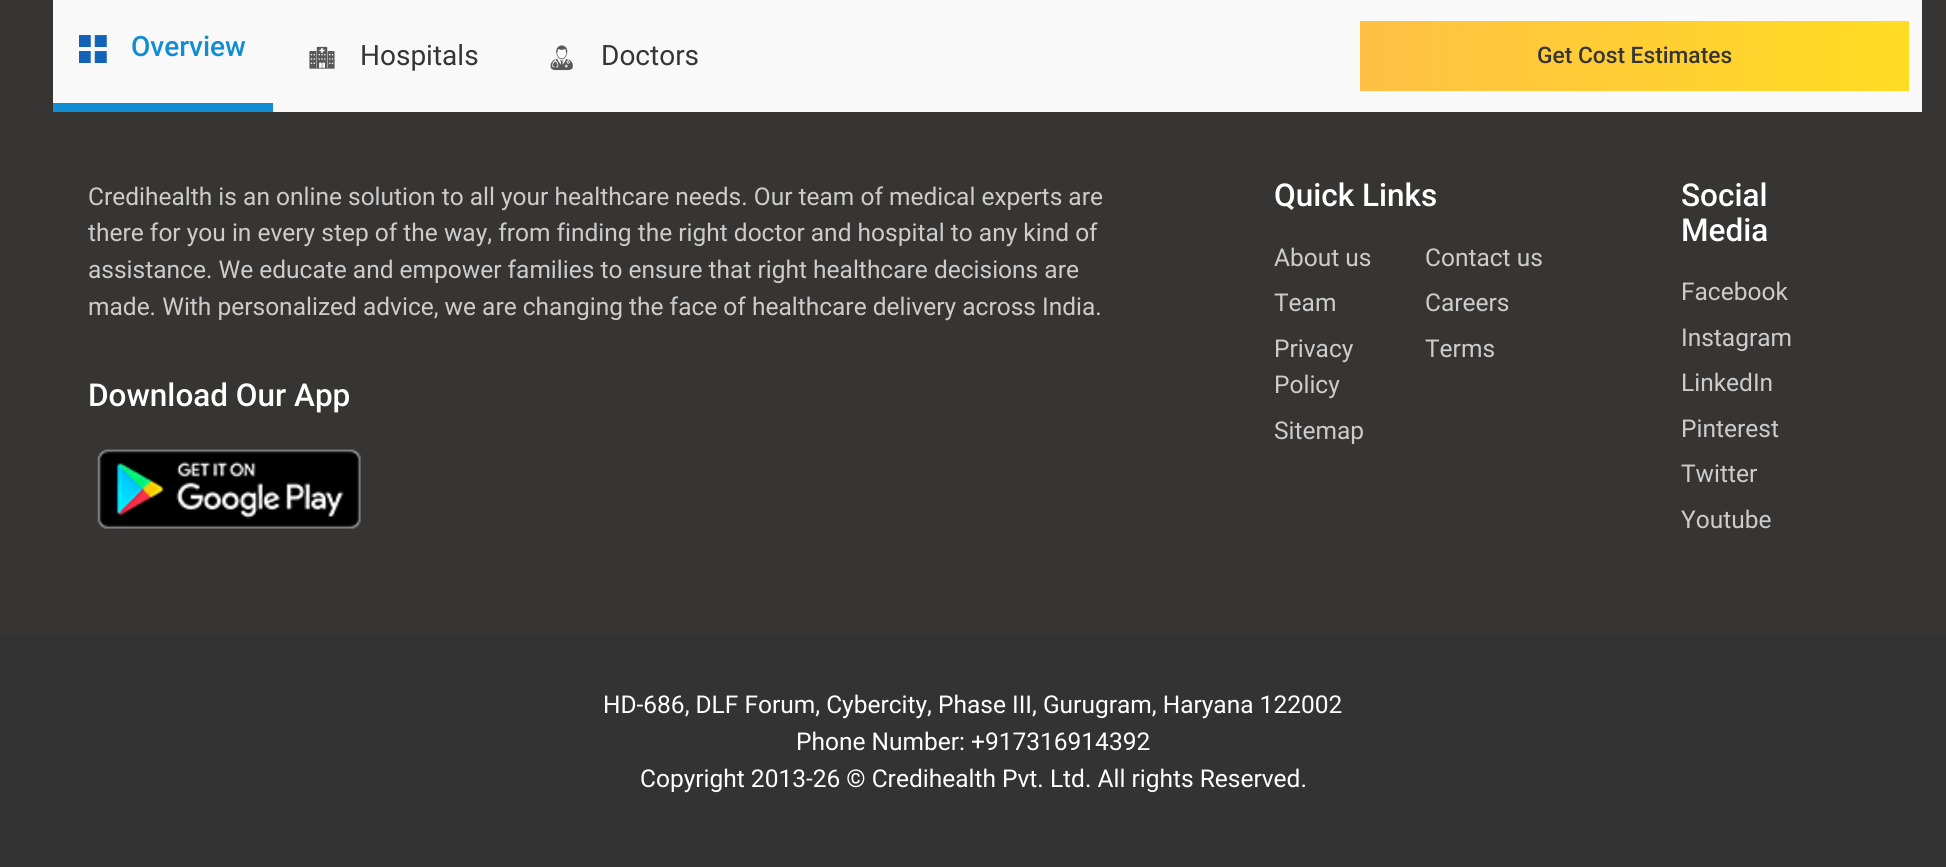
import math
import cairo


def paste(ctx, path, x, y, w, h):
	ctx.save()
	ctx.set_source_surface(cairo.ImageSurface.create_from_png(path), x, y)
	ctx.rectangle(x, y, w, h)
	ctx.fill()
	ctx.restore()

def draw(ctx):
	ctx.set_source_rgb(0.216, 0.208, 0.204)
	ctx.paint()
	ctx.set_source_rgb(0.973, 0.973, 0.973)
	ctx.rectangle(53, 0, 1869, 112)
	ctx.fill()
	ctx.set_source_rgb(0.071, 0.553, 0.82)
	ctx.rectangle(53, 103, 220, 9)
	ctx.fill()
	paste(ctx, 'media/1.png', 79, 35, 28, 28)
	ctx.select_font_face('Roboto Medium')
	ctx.set_font_size(28)
	ctx.move_to(131, 56)
	ctx.show_text('Overview')
	paste(ctx, 'media/2.png', 309, 46, 26, 23)
	ctx.select_font_face('Roboto')
	ctx.set_source_rgb(0.216, 0.208, 0.204)
	ctx.move_to(360, 65)
	ctx.show_text('Hospitals')
	paste(ctx, 'media/3.png', 550, 45, 23, 26)
	ctx.move_to(601, 65)
	ctx.show_text('Doctors')
	gradient = cairo.LinearGradient(1360, 56, 1909, 56)
	gradient.add_color_stop_rgba(0, 1, 0.753, 0.271, 1)
	gradient.add_color_stop_rgba(1, 1, 0.863, 0.133, 1)
	ctx.set_source(gradient)
	ctx.rectangle(1360, 21, 549, 70)
	ctx.fill()
	ctx.select_font_face('Roboto Medium')
	ctx.set_font_size(22.75)
	ctx.set_source_rgb(0.216, 0.208, 0.204)
	ctx.move_to(1537, 63)
	ctx.show_text('Get Cost Estimates')
	ctx.select_font_face('Roboto')
	ctx.set_font_size(24.5)
	ctx.set_source_rgb(0.8, 0.8, 0.8)
	for x, y, s in [
		(88, 205, 'Credihealth is an online solution to all your healthcare needs. Our team of medical experts are'),
		(88, 241, 'there for you in every step of the way, from finding the right doctor and hospital to any kind of'),
		(88, 278, 'assistance. We educate and empower families to ensure that right healthcare decisions are'),
		(88, 315, 'made. With personalized advice, we are changing the face of healthcare delivery across India.'),
	]:
		ctx.move_to(x, y)
		ctx.show_text(s)
	ctx.select_font_face('Roboto Medium')
	ctx.set_font_size(31.5)
	ctx.set_source_rgb(1, 1, 1)
	ctx.move_to(88, 406)
	ctx.show_text('Download Our App')
	paste(ctx, 'media/4.png', 97, 449, 264, 80)
	ctx.move_to(1274, 206)
	ctx.show_text('Quick Links')
	ctx.select_font_face('Roboto')
	ctx.set_font_size(24.5)
	ctx.set_source_rgb(0.8, 0.8, 0.8)
	for x, y, s in [
		(1274, 266, 'About us'),
		(1425, 266, 'Contact us'),
		(1274, 311, 'Team'),
		(1425, 311, 'Careers'),
		(1274, 357, 'Privacy'),
		(1274, 393, 'Policy'),
		(1425, 357, 'Terms'),
		(1274, 439, 'Sitemap'),
	]:
		ctx.move_to(x, y)
		ctx.show_text(s)
	ctx.select_font_face('Roboto Medium')
	ctx.set_font_size(31.5)
	ctx.set_source_rgb(1, 1, 1)
	ctx.move_to(1681, 206)
	ctx.show_text('Social')
	ctx.move_to(1681, 241)
	ctx.show_text('Media')
	ctx.select_font_face('Roboto')
	ctx.set_font_size(24.5)
	ctx.set_source_rgb(0.8, 0.8, 0.8)
	for x, y, s in [
		(1681, 300, 'Facebook'),
		(1681, 346, 'Instagram'),
		(1681, 391, 'LinkedIn'),
		(1681, 437, 'Pinterest'),
		(1681, 482, 'Twitter'),
		(1681, 528, 'Youtube'),
	]:
		ctx.move_to(x, y)
		ctx.show_text(s)
	ctx.set_source_rgb(0.2, 0.2, 0.2)
	ctx.rectangle(0, 635, 1946, 232)
	ctx.fill()
	ctx.set_source_rgb(1, 1, 1)
	for x, y, s in [
		(603, 713, 'HD-686, DLF Forum, Cybercity, Phase III, Gurugram, Haryana 122002'),
		(796, 750, 'Phone Number: +917316914392'),
		(640, 787, 'Copyright 2013-26 © Credihealth Pvt. Ltd. All rights Reserved.'),
	]:
		ctx.move_to(x, y)
		ctx.show_text(s)


surface = cairo.ImageSurface(cairo.FORMAT_RGB24, 1946, 867)
ctx = cairo.Context(surface)
options = cairo.FontOptions()
options.set_hint_metrics(cairo.HINT_METRICS_OFF)
options.set_hint_style(cairo.HINT_STYLE_NONE)
ctx.set_font_options(options)
ctx.set_miter_limit(4)
draw(ctx)
surface.write_to_png('image.png')
